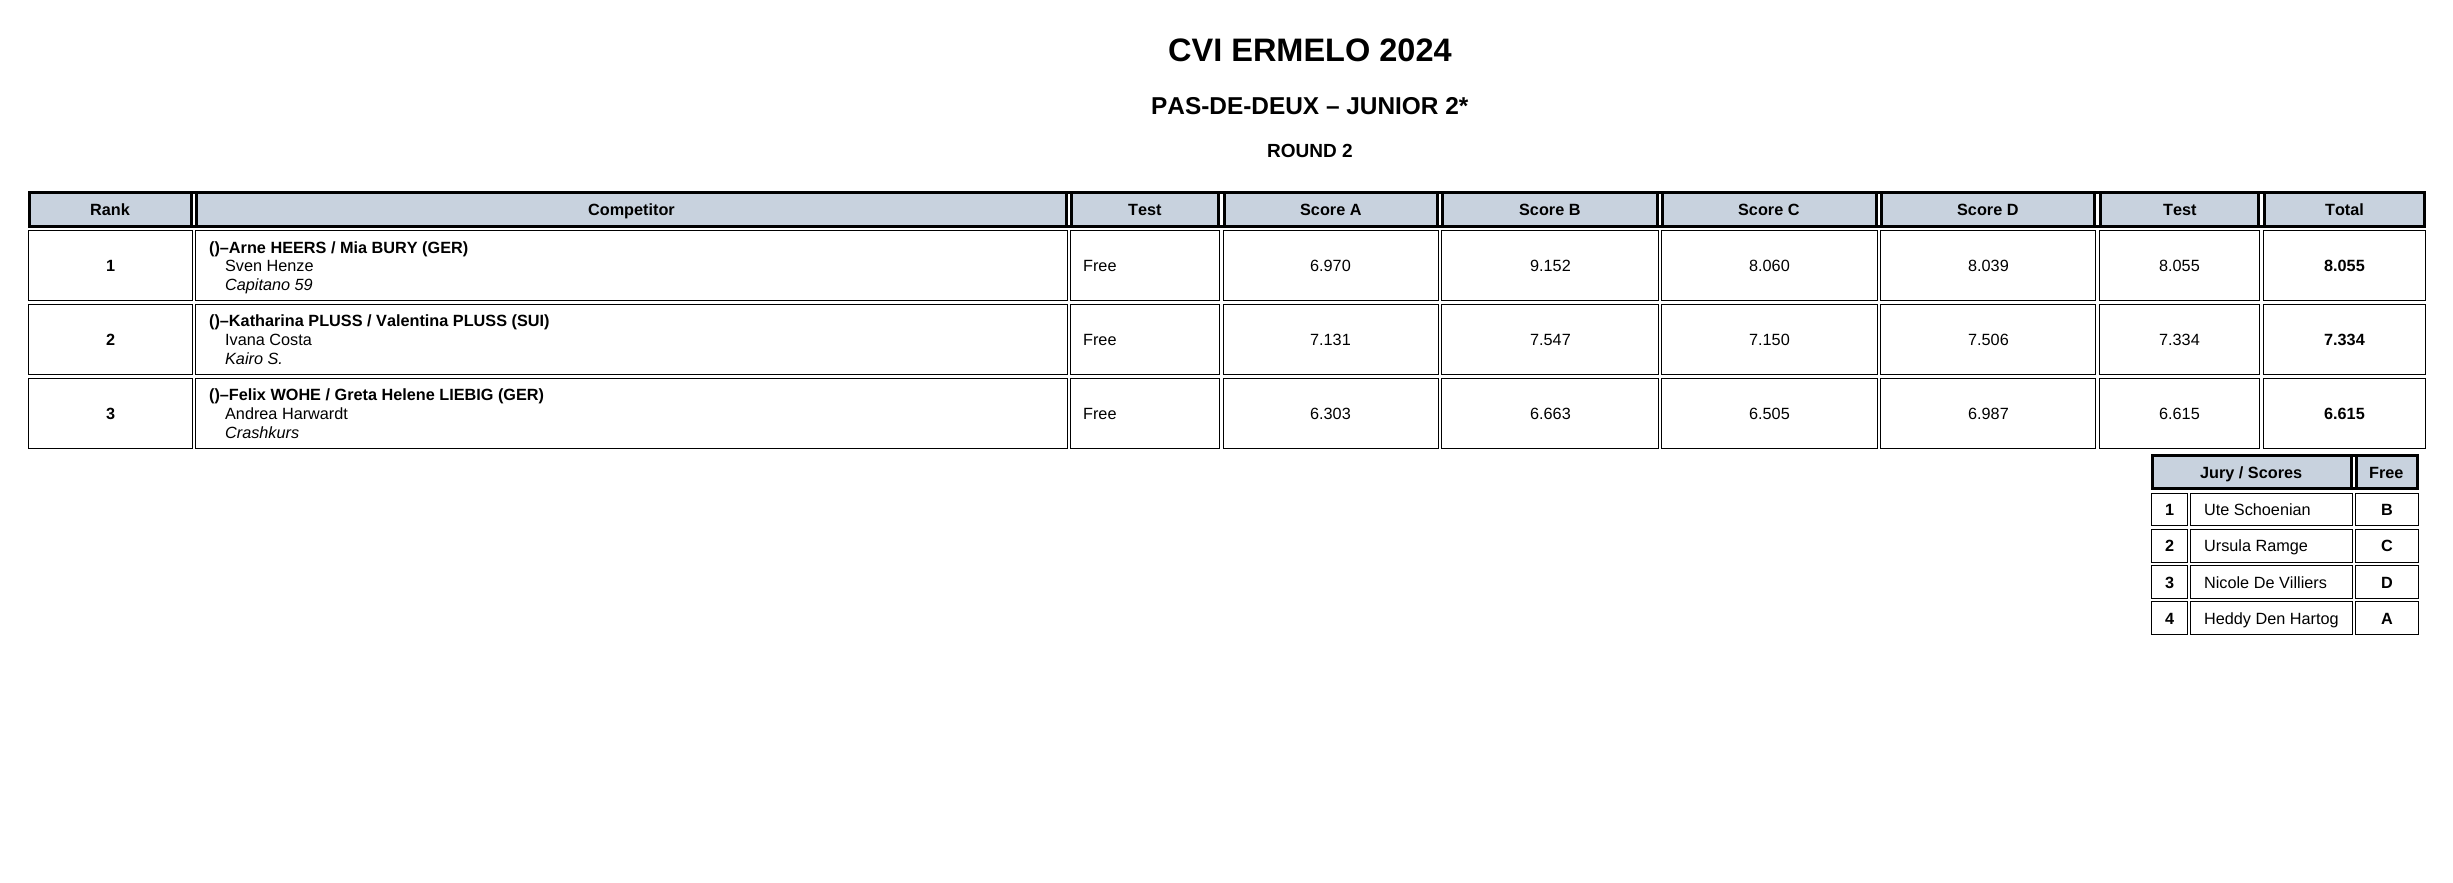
import math
import cairo


def draw(ctx):
	ctx.set_source_rgb(1, 1, 1)
	ctx.paint()
	ctx.select_font_face('Liberation Sans', cairo.FONT_SLANT_NORMAL, cairo.FONT_WEIGHT_BOLD)
	ctx.set_font_size(32.5)
	ctx.set_source_rgb(0, 0, 0)
	ctx.move_to(1168, 61)
	ctx.show_text('CVI ERMELO 2024')
	ctx.set_font_size(24.4)
	ctx.move_to(1151, 114)
	ctx.show_text('PAS-DE-DEUX – JUNIOR 2*')
	ctx.set_font_size(19)
	ctx.move_to(1267, 157)
	ctx.show_text('ROUND 2')
	ctx.rectangle(29.5, 192.5, 2395, 34)
	ctx.set_line_width(3)
	ctx.stroke()
	ctx.set_source_rgb(0.784, 0.824, 0.871)
	ctx.rectangle(29.5, 192.5, 162, 34)
	ctx.fill_preserve()
	ctx.set_source_rgb(0, 0, 0)
	ctx.stroke()
	ctx.set_font_size(16.25)
	ctx.move_to(90, 215)
	ctx.show_text('Rank')
	ctx.set_source_rgb(0.784, 0.824, 0.871)
	ctx.rectangle(196.5, 192.5, 870, 34)
	ctx.fill_preserve()
	ctx.set_source_rgb(0, 0, 0)
	ctx.stroke()
	ctx.move_to(588, 215)
	ctx.show_text('Competitor')
	ctx.set_source_rgb(0.784, 0.824, 0.871)
	ctx.rectangle(1071.5, 192.5, 147, 34)
	ctx.fill_preserve()
	ctx.set_source_rgb(0, 0, 0)
	ctx.stroke()
	ctx.move_to(1128, 215)
	ctx.show_text('Test')
	ctx.set_source_rgb(0.784, 0.824, 0.871)
	ctx.rectangle(1224.5, 192.5, 213, 34)
	ctx.fill_preserve()
	ctx.set_source_rgb(0, 0, 0)
	ctx.stroke()
	ctx.move_to(1300, 215)
	ctx.show_text('Score A')
	ctx.set_source_rgb(0.784, 0.824, 0.871)
	ctx.rectangle(1442.5, 192.5, 215, 34)
	ctx.fill_preserve()
	ctx.set_source_rgb(0, 0, 0)
	ctx.stroke()
	ctx.move_to(1519, 215)
	ctx.show_text('Score B')
	ctx.set_source_rgb(0.784, 0.824, 0.871)
	ctx.rectangle(1662.5, 192.5, 214, 34)
	ctx.fill_preserve()
	ctx.set_source_rgb(0, 0, 0)
	ctx.stroke()
	ctx.move_to(1738, 215)
	ctx.show_text('Score C')
	ctx.set_source_rgb(0.784, 0.824, 0.871)
	ctx.rectangle(1881.5, 192.5, 213, 34)
	ctx.fill_preserve()
	ctx.set_source_rgb(0, 0, 0)
	ctx.stroke()
	ctx.move_to(1957, 215)
	ctx.show_text('Score D')
	ctx.set_source_rgb(0.784, 0.824, 0.871)
	ctx.rectangle(2100.5, 192.5, 158, 34)
	ctx.fill_preserve()
	ctx.set_source_rgb(0, 0, 0)
	ctx.stroke()
	ctx.move_to(2163, 215)
	ctx.show_text('Test')
	ctx.set_source_rgb(0.784, 0.824, 0.871)
	ctx.rectangle(2264.5, 192.5, 160, 34)
	ctx.fill_preserve()
	ctx.set_source_rgb(0, 0, 0)
	ctx.stroke()
	ctx.move_to(2325, 215)
	ctx.show_text('Total')
	ctx.rectangle(28.5, 230.5, 164, 70)
	ctx.set_line_width(1)
	ctx.stroke()
	ctx.move_to(106, 271)
	ctx.show_text('1')
	ctx.rectangle(195.5, 230.5, 872, 70)
	ctx.stroke()
	ctx.move_to(209, 253)
	ctx.show_text('()–Arne HEERS / Mia BURY (GER)')
	ctx.select_font_face('Liberation Sans')
	ctx.move_to(225, 271)
	ctx.show_text('Sven Henze')
	ctx.select_font_face('Liberation Sans', cairo.FONT_SLANT_ITALIC)
	ctx.move_to(225, 290)
	ctx.show_text('Capitano 59')
	ctx.rectangle(1070.5, 230.5, 149, 70)
	ctx.stroke()
	ctx.select_font_face('Liberation Sans')
	ctx.move_to(1083, 271)
	ctx.show_text('Free')
	ctx.rectangle(1223.5, 230.5, 215, 70)
	ctx.stroke()
	ctx.move_to(1310, 271)
	ctx.show_text('6.970')
	ctx.rectangle(1441.5, 230.5, 217, 70)
	ctx.stroke()
	ctx.move_to(1530, 271)
	ctx.show_text('9.152')
	ctx.rectangle(1661.5, 230.5, 216, 70)
	ctx.stroke()
	ctx.move_to(1749, 271)
	ctx.show_text('8.060')
	ctx.rectangle(1880.5, 230.5, 215, 70)
	ctx.stroke()
	ctx.move_to(1968, 271)
	ctx.show_text('8.039')
	ctx.rectangle(2099.5, 230.5, 160, 70)
	ctx.stroke()
	ctx.move_to(2159, 271)
	ctx.show_text('8.055')
	ctx.rectangle(2263.5, 230.5, 162, 70)
	ctx.stroke()
	ctx.select_font_face('Liberation Sans', cairo.FONT_SLANT_NORMAL, cairo.FONT_WEIGHT_BOLD)
	ctx.move_to(2324, 271)
	ctx.show_text('8.055')
	ctx.rectangle(28.5, 304.5, 164, 70)
	ctx.stroke()
	ctx.move_to(106, 345)
	ctx.show_text('2')
	ctx.rectangle(195.5, 304.5, 872, 70)
	ctx.stroke()
	ctx.move_to(209, 326)
	ctx.show_text('()–Katharina PLUSS / Valentina PLUSS (SUI)')
	ctx.select_font_face('Liberation Sans')
	ctx.move_to(225, 345)
	ctx.show_text('Ivana Costa')
	ctx.select_font_face('Liberation Sans', cairo.FONT_SLANT_ITALIC)
	ctx.move_to(225, 364)
	ctx.show_text('Kairo S.')
	ctx.rectangle(1070.5, 304.5, 149, 70)
	ctx.stroke()
	ctx.select_font_face('Liberation Sans')
	ctx.move_to(1083, 345)
	ctx.show_text('Free')
	ctx.rectangle(1223.5, 304.5, 215, 70)
	ctx.stroke()
	ctx.move_to(1310, 345)
	ctx.show_text('7.131')
	ctx.rectangle(1441.5, 304.5, 217, 70)
	ctx.stroke()
	ctx.move_to(1530, 345)
	ctx.show_text('7.547')
	ctx.rectangle(1661.5, 304.5, 216, 70)
	ctx.stroke()
	ctx.move_to(1749, 345)
	ctx.show_text('7.150')
	ctx.rectangle(1880.5, 304.5, 215, 70)
	ctx.stroke()
	ctx.move_to(1968, 345)
	ctx.show_text('7.506')
	ctx.rectangle(2099.5, 304.5, 160, 70)
	ctx.stroke()
	ctx.move_to(2159, 345)
	ctx.show_text('7.334')
	ctx.rectangle(2263.5, 304.5, 162, 70)
	ctx.stroke()
	ctx.select_font_face('Liberation Sans', cairo.FONT_SLANT_NORMAL, cairo.FONT_WEIGHT_BOLD)
	ctx.move_to(2324, 345)
	ctx.show_text('7.334')
	ctx.rectangle(28.5, 378.5, 164, 70)
	ctx.stroke()
	ctx.move_to(106, 419)
	ctx.show_text('3')
	ctx.rectangle(195.5, 378.5, 872, 70)
	ctx.stroke()
	ctx.move_to(209, 400)
	ctx.show_text('()–Felix WOHE / Greta Helene LIEBIG (GER)')
	ctx.select_font_face('Liberation Sans')
	ctx.move_to(225, 419)
	ctx.show_text('Andrea Harwardt')
	ctx.select_font_face('Liberation Sans', cairo.FONT_SLANT_ITALIC)
	ctx.move_to(225, 438)
	ctx.show_text('Crashkurs')
	ctx.rectangle(1070.5, 378.5, 149, 70)
	ctx.stroke()
	ctx.select_font_face('Liberation Sans')
	ctx.move_to(1083, 419)
	ctx.show_text('Free')
	ctx.rectangle(1223.5, 378.5, 215, 70)
	ctx.stroke()
	ctx.move_to(1310, 419)
	ctx.show_text('6.303')
	ctx.rectangle(1441.5, 378.5, 217, 70)
	ctx.stroke()
	ctx.move_to(1530, 419)
	ctx.show_text('6.663')
	ctx.rectangle(1661.5, 378.5, 216, 70)
	ctx.stroke()
	ctx.move_to(1749, 419)
	ctx.show_text('6.505')
	ctx.rectangle(1880.5, 378.5, 215, 70)
	ctx.stroke()
	ctx.move_to(1968, 419)
	ctx.show_text('6.987')
	ctx.rectangle(2099.5, 378.5, 160, 70)
	ctx.stroke()
	ctx.move_to(2159, 419)
	ctx.show_text('6.615')
	ctx.rectangle(2263.5, 378.5, 162, 70)
	ctx.stroke()
	ctx.select_font_face('Liberation Sans', cairo.FONT_SLANT_NORMAL, cairo.FONT_WEIGHT_BOLD)
	ctx.move_to(2324, 419)
	ctx.show_text('6.615')
	ctx.rectangle(2152.5, 455.5, 265, 33)
	ctx.set_line_width(3)
	ctx.stroke()
	ctx.set_source_rgb(0.784, 0.824, 0.871)
	ctx.rectangle(2152.5, 455.5, 199, 33)
	ctx.fill_preserve()
	ctx.set_source_rgb(0, 0, 0)
	ctx.stroke()
	ctx.move_to(2200, 478)
	ctx.show_text('Jury / Scores')
	ctx.set_source_rgb(0.784, 0.824, 0.871)
	ctx.rectangle(2356.5, 455.5, 61, 33)
	ctx.fill_preserve()
	ctx.set_source_rgb(0, 0, 0)
	ctx.stroke()
	ctx.move_to(2369, 478)
	ctx.show_text('Free')
	ctx.rectangle(2151.5, 493.5, 36, 32)
	ctx.set_line_width(1)
	ctx.stroke()
	ctx.move_to(2165, 515)
	ctx.show_text('1')
	ctx.rectangle(2190.5, 493.5, 162, 32)
	ctx.stroke()
	ctx.select_font_face('Liberation Sans')
	ctx.move_to(2204, 515)
	ctx.show_text('Ute Schoenian')
	ctx.rectangle(2355.5, 493.5, 63, 32)
	ctx.stroke()
	ctx.select_font_face('Liberation Sans', cairo.FONT_SLANT_NORMAL, cairo.FONT_WEIGHT_BOLD)
	ctx.move_to(2381, 515)
	ctx.show_text('B')
	ctx.rectangle(2151.5, 529.5, 36, 33)
	ctx.stroke()
	ctx.move_to(2165, 551)
	ctx.show_text('2')
	ctx.rectangle(2190.5, 529.5, 162, 33)
	ctx.stroke()
	ctx.select_font_face('Liberation Sans')
	ctx.move_to(2204, 551)
	ctx.show_text('Ursula Ramge')
	ctx.rectangle(2355.5, 529.5, 63, 33)
	ctx.stroke()
	ctx.select_font_face('Liberation Sans', cairo.FONT_SLANT_NORMAL, cairo.FONT_WEIGHT_BOLD)
	ctx.move_to(2381, 551)
	ctx.show_text('C')
	ctx.rectangle(2151.5, 565.5, 36, 33)
	ctx.stroke()
	ctx.move_to(2165, 588)
	ctx.show_text('3')
	ctx.rectangle(2190.5, 565.5, 162, 33)
	ctx.stroke()
	ctx.select_font_face('Liberation Sans')
	ctx.move_to(2204, 588)
	ctx.show_text('Nicole De Villiers')
	ctx.rectangle(2355.5, 565.5, 63, 33)
	ctx.stroke()
	ctx.select_font_face('Liberation Sans', cairo.FONT_SLANT_NORMAL, cairo.FONT_WEIGHT_BOLD)
	ctx.move_to(2381, 588)
	ctx.show_text('D')
	ctx.rectangle(2151.5, 601.5, 36, 33)
	ctx.stroke()
	ctx.move_to(2165, 624)
	ctx.show_text('4')
	ctx.rectangle(2190.5, 601.5, 162, 33)
	ctx.stroke()
	ctx.select_font_face('Liberation Sans')
	ctx.move_to(2204, 624)
	ctx.show_text('Heddy Den Hartog')
	ctx.rectangle(2355.5, 601.5, 63, 33)
	ctx.stroke()
	ctx.select_font_face('Liberation Sans', cairo.FONT_SLANT_NORMAL, cairo.FONT_WEIGHT_BOLD)
	ctx.move_to(2381, 624)
	ctx.show_text('A')


surface = cairo.ImageSurface(cairo.FORMAT_RGB24, 2453, 883)
ctx = cairo.Context(surface)
options = cairo.FontOptions()
options.set_hint_metrics(cairo.HINT_METRICS_OFF)
options.set_hint_style(cairo.HINT_STYLE_NONE)
ctx.set_font_options(options)
ctx.set_miter_limit(4)
draw(ctx)
surface.write_to_png('image.png')
